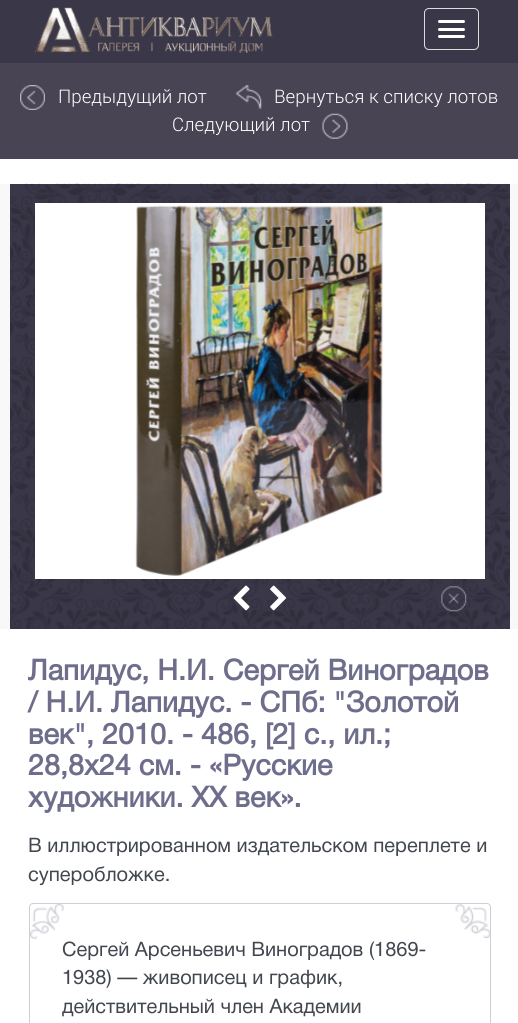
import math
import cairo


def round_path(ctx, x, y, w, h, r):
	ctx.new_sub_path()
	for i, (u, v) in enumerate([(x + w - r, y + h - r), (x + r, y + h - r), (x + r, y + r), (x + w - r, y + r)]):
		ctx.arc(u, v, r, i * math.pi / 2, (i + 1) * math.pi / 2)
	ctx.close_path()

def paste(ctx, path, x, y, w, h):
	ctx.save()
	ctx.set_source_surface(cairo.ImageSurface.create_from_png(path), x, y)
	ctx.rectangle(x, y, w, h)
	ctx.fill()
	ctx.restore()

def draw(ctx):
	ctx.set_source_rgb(1, 1, 1)
	ctx.paint()
	ctx.set_source_rgb(0.227, 0.216, 0.286)
	ctx.rectangle(0, 0, 518, 63)
	ctx.fill()
	paste(ctx, 'media/1.png', 35, 7, 238, 46)
	round_path(ctx, 424.5, 8.5, 54, 41, 4.5)
	ctx.set_source_rgb(0.867, 0.867, 0.867)
	ctx.set_line_width(1)
	ctx.stroke()
	ctx.set_source_rgb(1, 1, 1)
	round_path(ctx, 438, 20, 27, 3, 1.5)
	ctx.fill()
	round_path(ctx, 438, 28, 27, 3, 1.5)
	ctx.fill()
	round_path(ctx, 438, 35, 27, 3, 1.5)
	ctx.fill()
	ctx.set_source_rgb(0.282, 0.267, 0.329)
	ctx.rectangle(0, 63, 518, 96)
	ctx.fill()
	paste(ctx, 'media/2.png', 20, 85, 25, 25)
	ctx.select_font_face('Roboto Light')
	ctx.set_font_size(18.75)
	ctx.set_source_rgb(1, 1, 1)
	ctx.move_to(58, 103)
	ctx.show_text('Предыдущий лот')
	paste(ctx, 'media/3.png', 236, 85, 26, 24)
	ctx.move_to(274, 103)
	ctx.show_text('Вернуться к списку лотов')
	ctx.move_to(172, 131)
	ctx.show_text('Следующий лот')
	paste(ctx, 'media/4.png', 322, 113, 26, 26)
	ctx.set_source_rgb(0.973, 0.969, 0.973)
	ctx.rectangle(0, 184, 518, 445)
	ctx.fill()
	ctx.set_source_rgb(0.227, 0.216, 0.286)
	ctx.rectangle(10, 184, 500, 445)
	ctx.fill()
	paste(ctx, 'media/5.png', 10, 183, 500, 446)
	ctx.set_source_rgb(1, 1, 1)
	ctx.rectangle(35, 203, 450, 376)
	ctx.fill()
	paste(ctx, 'media/6.png', 135, 205, 248, 371)
	paste(ctx, 'media/7.png', 233, 585, 17, 26)
	paste(ctx, 'media/8.png', 270, 585, 16, 26)
	paste(ctx, 'media/9.png', 441, 586, 26, 26)
	ctx.select_font_face('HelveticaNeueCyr', cairo.FONT_SLANT_NORMAL, cairo.FONT_WEIGHT_BOLD)
	ctx.set_font_size(28.75)
	ctx.set_source_rgb(0.431, 0.431, 0.549)
	for x, y, s in [
		(28, 680, 'Лапидус, Н.И. Сергей Виноградов'),
		(28, 712, '/ Н.И. Лапидус. - СПб: "Золотой'),
		(28, 744, 'век", 2010. - 486, [2] с., ил.;'),
		(28, 775, '28,8x24 см. - «Русские'),
		(28, 807, 'художники. XX век».'),
	]:
		ctx.move_to(x, y)
		ctx.show_text(s)
	ctx.select_font_face('HelveticaNeueCyr')
	ctx.set_font_size(20)
	ctx.set_source_rgb(0.259, 0.278, 0.31)
	ctx.move_to(28, 852)
	ctx.show_text('В иллюстрированном издательском переплете и')
	ctx.move_to(28, 881)
	ctx.show_text('суперобложке.')
	round_path(ctx, 29.5, 903.5, 461, 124, 3.5)
	ctx.set_source_rgb(0.808, 0.808, 0.839)
	ctx.stroke()
	paste(ctx, 'media/10.png', 30, 904, 34, 35)
	paste(ctx, 'media/11.png', 455, 904, 35, 35)
	ctx.set_source_rgb(0.259, 0.278, 0.31)
	for x, y, s in [
		(62, 956, 'Сергей Арсеньевич Виноградов (1869-'),
		(62, 984, '1938) — живописец и график,'),
		(62, 1013, 'действительный член Академии'),
	]:
		ctx.move_to(x, y)
		ctx.show_text(s)


surface = cairo.ImageSurface(cairo.FORMAT_RGB24, 518, 1023)
ctx = cairo.Context(surface)
options = cairo.FontOptions()
options.set_hint_metrics(cairo.HINT_METRICS_OFF)
options.set_hint_style(cairo.HINT_STYLE_NONE)
ctx.set_font_options(options)
ctx.set_miter_limit(4)
draw(ctx)
surface.write_to_png('image.png')
